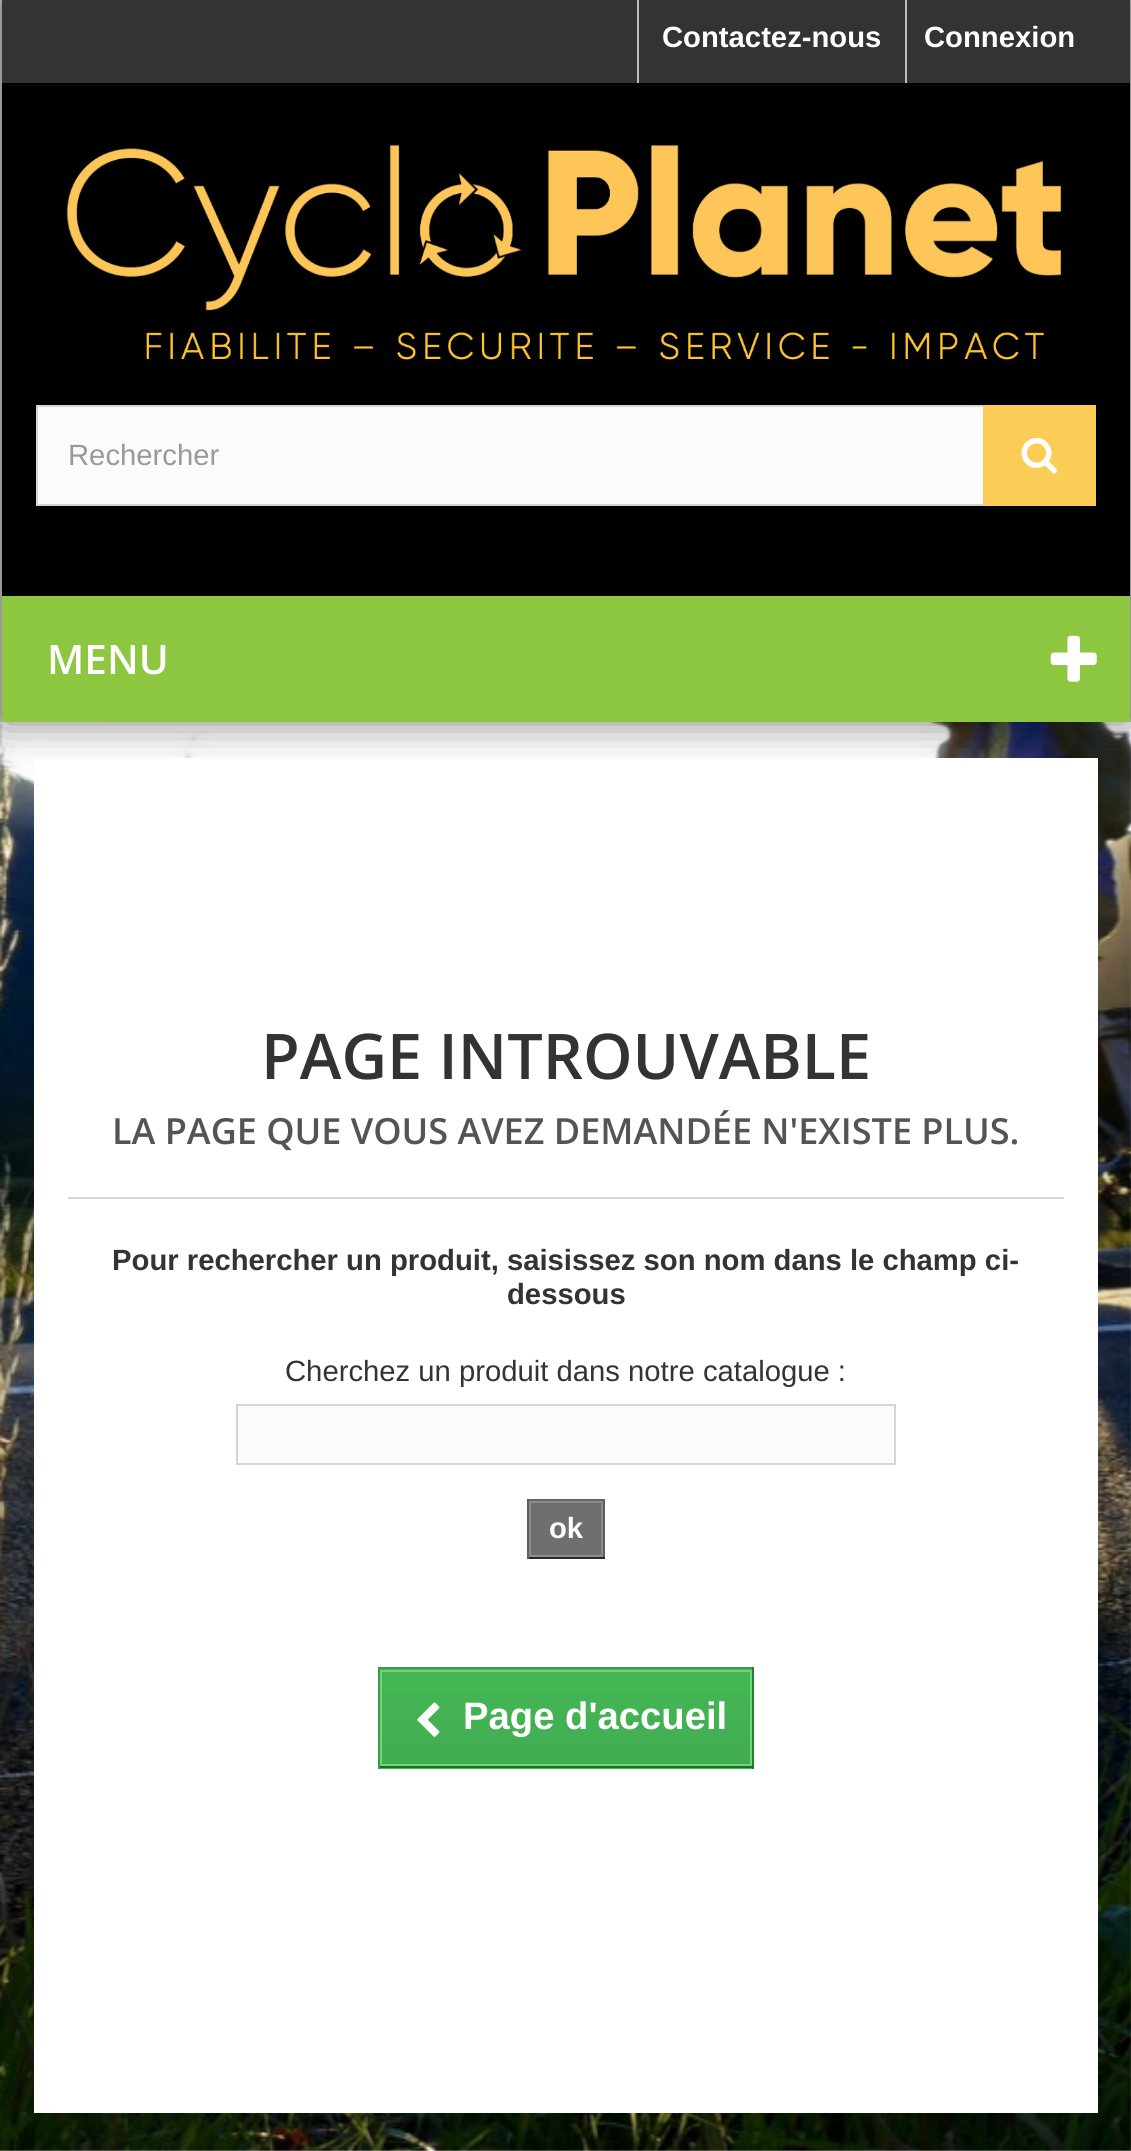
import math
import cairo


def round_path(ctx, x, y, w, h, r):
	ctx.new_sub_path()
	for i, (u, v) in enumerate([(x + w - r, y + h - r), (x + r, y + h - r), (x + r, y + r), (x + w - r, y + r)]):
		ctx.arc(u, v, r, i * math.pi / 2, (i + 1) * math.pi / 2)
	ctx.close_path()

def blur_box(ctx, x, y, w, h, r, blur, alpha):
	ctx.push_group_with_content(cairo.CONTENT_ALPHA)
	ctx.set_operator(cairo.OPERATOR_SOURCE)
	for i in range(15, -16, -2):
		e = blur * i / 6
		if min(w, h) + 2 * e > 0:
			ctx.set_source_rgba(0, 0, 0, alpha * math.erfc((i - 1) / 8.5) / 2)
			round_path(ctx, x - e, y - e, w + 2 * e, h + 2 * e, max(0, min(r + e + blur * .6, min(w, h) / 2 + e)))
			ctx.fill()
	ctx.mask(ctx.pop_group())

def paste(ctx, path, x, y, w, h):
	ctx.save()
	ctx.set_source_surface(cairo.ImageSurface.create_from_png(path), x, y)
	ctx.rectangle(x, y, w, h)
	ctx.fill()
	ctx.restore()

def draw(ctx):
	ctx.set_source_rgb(1, 1, 1)
	ctx.paint()
	paste(ctx, 'media/1.png', 0, 722, 1131, 1429)
	ctx.set_source_rgb(0.8, 0.8, 0.8)
	ctx.rectangle(1130, 0, 1, 722)
	ctx.fill()
	ctx.rectangle(0, 0, 2, 722)
	ctx.fill()
	ctx.set_source_rgb(0, 0, 0)
	blur_box(ctx, 2, 0, 1128, 722, 0, 22.5, 0.5)
	ctx.set_source_rgb(0.2, 0.2, 0.2)
	ctx.rectangle(2, 0, 1128, 83)
	ctx.fill()
	ctx.set_source_rgb(0.733, 0.733, 0.733)
	ctx.rectangle(637, 0, 2, 83)
	ctx.fill()
	ctx.select_font_face('Liberation Sans', cairo.FONT_SLANT_NORMAL, cairo.FONT_WEIGHT_BOLD)
	ctx.set_font_size(29.25)
	ctx.set_source_rgb(1, 1, 1)
	ctx.move_to(662, 47)
	ctx.show_text('Contactez-nous')
	ctx.set_source_rgb(0.733, 0.733, 0.733)
	ctx.rectangle(905, 0, 2, 83)
	ctx.fill()
	ctx.set_source_rgb(1, 1, 1)
	ctx.move_to(924, 47)
	ctx.show_text('Connexion')
	ctx.set_source_rgb(0, 0, 0)
	ctx.rectangle(2, 83, 1128, 513)
	ctx.fill()
	paste(ctx, 'media/2.png', 65, 144, 1001, 218)
	ctx.set_source_rgb(0.984, 0.984, 0.984)
	ctx.rectangle(38, 407, 945, 97)
	ctx.fill()
	ctx.rectangle(37, 406, 1058, 99)
	ctx.set_source_rgb(0.839, 0.831, 0.831)
	ctx.stroke()
	ctx.select_font_face('Liberation Sans')
	ctx.set_source_rgb(0.6, 0.6, 0.6)
	ctx.move_to(68, 465)
	ctx.show_text('Rechercher')
	ctx.set_source_rgb(0.988, 0.804, 0.337)
	ctx.rectangle(983, 405, 113, 101)
	ctx.fill()
	paste(ctx, 'media/3.png', 1021, 437, 36, 37)
	ctx.set_source_rgb(0.553, 0.776, 0.247)
	ctx.rectangle(2, 596, 1128, 126)
	ctx.fill()
	ctx.select_font_face('Open Sans SemiBold')
	ctx.set_font_size(40.5)
	ctx.set_source_rgb(1, 1, 1)
	ctx.move_to(47, 674)
	ctx.show_text('MENU')
	paste(ctx, 'media/4.png', 1050, 635, 47, 47)
	ctx.rectangle(34, 758, 1064, 1355)
	ctx.fill()
	ctx.set_font_size(63)
	ctx.set_source_rgb(0.2, 0.2, 0.2)
	ctx.move_to(261, 1079)
	ctx.show_text('PAGE INTROUVABLE')
	ctx.set_source_rgb(0.839, 0.831, 0.831)
	ctx.rectangle(68, 1197, 996, 2)
	ctx.fill()
	ctx.set_font_size(36)
	ctx.set_source_rgb(0.333, 0.329, 0.329)
	ctx.move_to(112, 1144)
	ctx.show_text('LA PAGE QUE VOUS AVEZ DEMANDÉE N\'EXISTE PLUS.')
	ctx.select_font_face('Liberation Sans', cairo.FONT_SLANT_NORMAL, cairo.FONT_WEIGHT_BOLD)
	ctx.set_font_size(29.25)
	ctx.set_source_rgb(0.2, 0.2, 0.2)
	ctx.move_to(112, 1270)
	ctx.show_text('Pour rechercher un produit, saisissez son nom dans le champ ci-')
	ctx.move_to(507, 1304)
	ctx.show_text('dessous')
	ctx.select_font_face('Liberation Sans')
	ctx.move_to(285, 1381)
	ctx.show_text('Cherchez un produit dans notre catalogue :')
	ctx.set_source_rgb(0.984, 0.984, 0.984)
	ctx.rectangle(237, 1405, 658, 59)
	ctx.fill_preserve()
	ctx.set_source_rgb(0.839, 0.831, 0.831)
	ctx.stroke()
	ctx.set_source_rgb(0.4, 0.4, 0.4)
	ctx.rectangle(527, 1499, 78, 2)
	ctx.fill()
	ctx.set_source_rgb(0.373, 0.373, 0.373)
	ctx.rectangle(603, 1499, 2, 60)
	ctx.fill()
	ctx.set_source_rgb(0.161, 0.161, 0.161)
	ctx.rectangle(527, 1557, 78, 2)
	ctx.fill()
	ctx.set_source_rgb(0.373, 0.373, 0.373)
	ctx.rectangle(527, 1499, 2, 60)
	ctx.fill()
	ctx.set_source_rgb(0.435, 0.435, 0.435)
	ctx.rectangle(530, 1502, 72, 54)
	ctx.fill_preserve()
	ctx.set_source_rgb(0.545, 0.541, 0.541)
	ctx.stroke()
	ctx.select_font_face('Liberation Sans', cairo.FONT_SLANT_NORMAL, cairo.FONT_WEIGHT_BOLD)
	ctx.set_source_rgb(1, 1, 1)
	ctx.move_to(549, 1538)
	ctx.show_text('ok')
	ctx.set_source_rgb(0.263, 0.718, 0.329)
	ctx.rectangle(380, 1669, 372, 100)
	ctx.fill()
	gradient = cairo.LinearGradient(566, 1670, 566, 1766)
	gradient.add_color_stop_rgba(0, 0.263, 0.718, 0.329, 1)
	gradient.add_color_stop_rgba(1, 0.259, 0.675, 0.322, 1)
	ctx.set_source(gradient)
	ctx.rectangle(382, 1692, 368, 72)
	ctx.fill()
	ctx.set_source_rgb(0.224, 0.604, 0.286)
	ctx.rectangle(378, 1667, 376, 2)
	ctx.fill()
	ctx.set_source_rgb(0.141, 0.498, 0.196)
	ctx.rectangle(752, 1667, 2, 102)
	ctx.fill()
	ctx.set_source_rgb(0.102, 0.427, 0.153)
	ctx.rectangle(378, 1766, 376, 2)
	ctx.fill()
	ctx.set_source_rgb(0.224, 0.604, 0.286)
	ctx.rectangle(378, 1667, 2, 102)
	ctx.fill()
	ctx.rectangle(381, 1671, 370, 94)
	ctx.set_source_rgb(0.455, 0.835, 0.471)
	ctx.stroke()
	paste(ctx, 'media/5.png', 417, 1702, 23, 35)
	ctx.set_font_size(38.25)
	ctx.set_source_rgb(1, 1, 1)
	ctx.move_to(463, 1729)
	ctx.show_text('Page d\'accueil')


surface = cairo.ImageSurface(cairo.FORMAT_RGB24, 1131, 2151)
ctx = cairo.Context(surface)
options = cairo.FontOptions()
options.set_hint_metrics(cairo.HINT_METRICS_OFF)
options.set_hint_style(cairo.HINT_STYLE_NONE)
ctx.set_font_options(options)
ctx.set_miter_limit(4)
draw(ctx)
surface.write_to_png('image.png')
